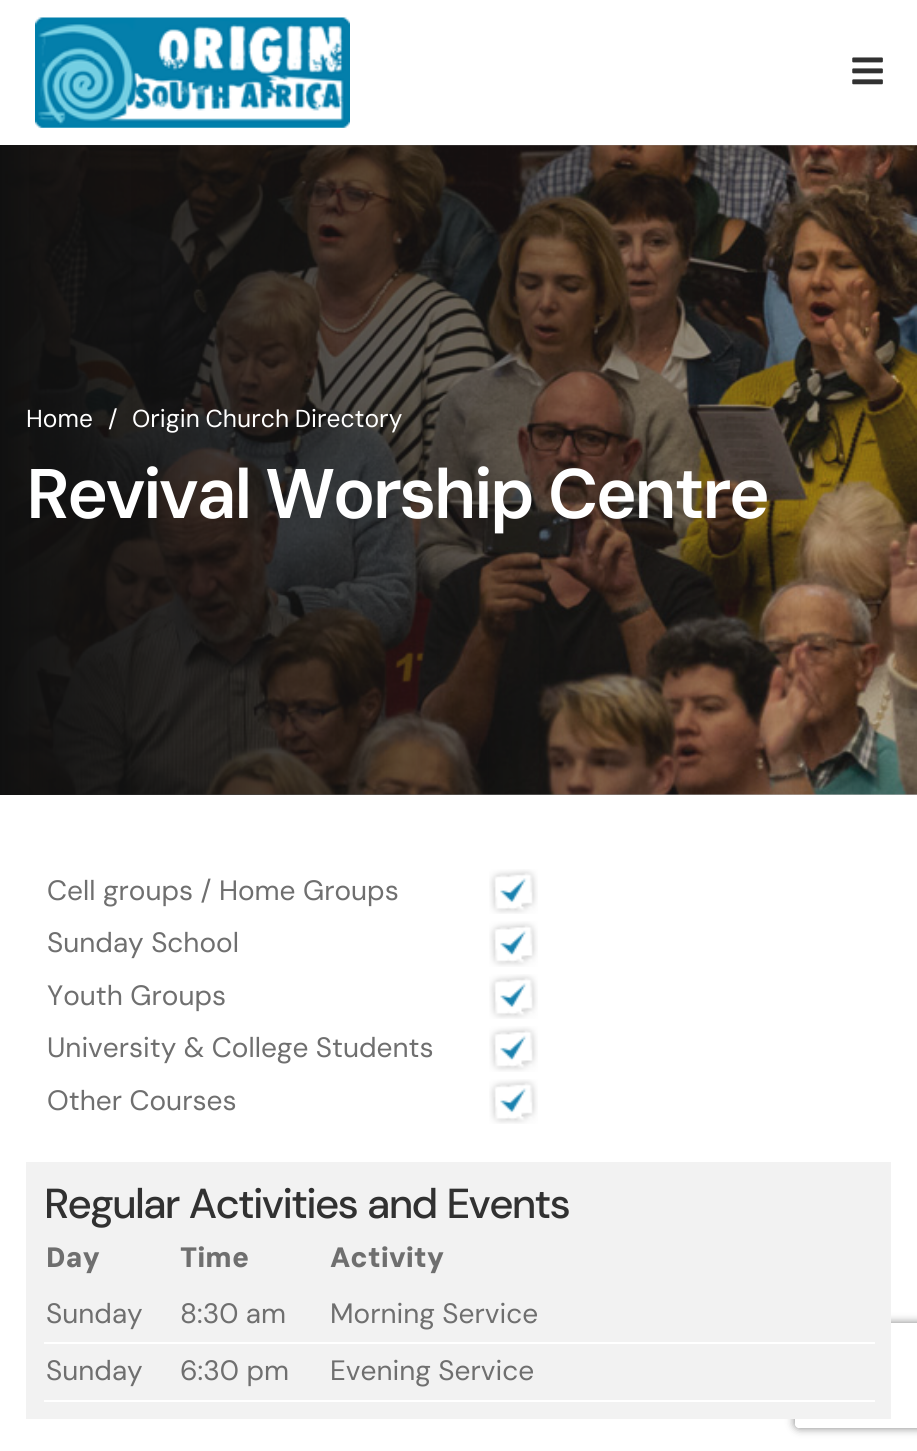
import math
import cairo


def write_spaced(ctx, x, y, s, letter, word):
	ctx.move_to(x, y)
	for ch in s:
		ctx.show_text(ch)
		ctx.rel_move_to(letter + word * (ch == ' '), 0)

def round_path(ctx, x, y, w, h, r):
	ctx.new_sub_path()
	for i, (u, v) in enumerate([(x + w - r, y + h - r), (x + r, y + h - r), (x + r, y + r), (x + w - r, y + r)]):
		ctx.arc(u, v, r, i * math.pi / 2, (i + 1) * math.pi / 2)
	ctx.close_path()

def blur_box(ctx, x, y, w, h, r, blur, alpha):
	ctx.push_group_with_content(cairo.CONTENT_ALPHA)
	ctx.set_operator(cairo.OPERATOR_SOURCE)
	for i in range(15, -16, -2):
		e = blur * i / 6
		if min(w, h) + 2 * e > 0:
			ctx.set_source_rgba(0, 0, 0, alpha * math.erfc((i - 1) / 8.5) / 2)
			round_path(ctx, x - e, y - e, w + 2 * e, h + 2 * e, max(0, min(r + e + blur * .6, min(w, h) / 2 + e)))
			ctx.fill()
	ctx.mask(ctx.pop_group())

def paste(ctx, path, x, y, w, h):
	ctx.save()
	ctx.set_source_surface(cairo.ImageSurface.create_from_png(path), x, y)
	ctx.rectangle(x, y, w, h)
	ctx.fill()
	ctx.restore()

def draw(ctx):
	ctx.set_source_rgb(1, 1, 1)
	ctx.paint()
	ctx.set_source_rgb(0.741, 0.741, 0.741)
	ctx.rectangle(5, 145, 912, 650)
	ctx.fill()
	paste(ctx, 'media/1.png', 35, 17, 315, 111)
	paste(ctx, 'media/2.png', 852, 57, 31, 28)
	paste(ctx, 'media/3.png', 5, 145, 912, 650)
	gradient = cairo.LinearGradient(0, 470, 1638, 470)
	gradient.add_color_stop_rgba(0, 0.063, 0.063, 0.063, 1)
	gradient.add_color_stop_rgba(0.5, 0.063, 0.063, 0.063, 0)
	ctx.set_source(gradient)
	ctx.rectangle(0, 145, 801, 650)
	ctx.fill()
	ctx.select_font_face('DM Sans')
	ctx.set_font_size(24.5)
	ctx.set_source_rgb(1, 1, 1)
	ctx.move_to(26, 427)
	ctx.show_text('Home')
	ctx.move_to(108, 427)
	ctx.show_text('/')
	write_spaced(ctx, 132, 427, 'Origin Church Directory', 0, -1)
	ctx.select_font_face('DM Sans SemiBold')
	ctx.set_font_size(70)
	write_spaced(ctx, 26, 518, 'Revival Worship Centre', -2.8, 1)
	paste(ctx, 'media/4.png', 489, 869, 49, 45)
	ctx.select_font_face('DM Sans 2')
	ctx.set_font_size(28)
	ctx.set_source_rgb(0.435, 0.435, 0.435)
	ctx.move_to(47, 900)
	ctx.show_text('Cell groups / Home Groups')
	paste(ctx, 'media/5.png', 489, 921, 49, 46)
	ctx.move_to(47, 952)
	ctx.show_text('Sunday School')
	paste(ctx, 'media/4.png', 489, 974, 49, 45)
	ctx.move_to(47, 1005)
	ctx.show_text('Youth Groups')
	paste(ctx, 'media/5.png', 489, 1026, 49, 46)
	ctx.move_to(47, 1057)
	ctx.show_text('University & College Students')
	paste(ctx, 'media/4.png', 489, 1079, 49, 45)
	ctx.move_to(47, 1110)
	ctx.show_text('Other Courses')
	ctx.save()
	ctx.set_fill_rule(cairo.FILL_RULE_EVEN_ODD)
	ctx.new_path()
	ctx.move_to(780, 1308)
	ctx.line_to(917, 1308)
	ctx.line_to(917, 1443)
	ctx.line_to(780, 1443)
	ctx.close_path()
	ctx.move_to(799, 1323)
	ctx.line_to(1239, 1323)
	ctx.curve_to(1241, 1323, 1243, 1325, 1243, 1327)
	ctx.line_to(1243, 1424)
	ctx.curve_to(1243, 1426, 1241, 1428, 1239, 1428)
	ctx.line_to(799, 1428)
	ctx.curve_to(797, 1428, 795, 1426, 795, 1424)
	ctx.line_to(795, 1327)
	ctx.curve_to(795, 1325, 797, 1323, 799, 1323)
	ctx.close_path()
	ctx.clip()
	ctx.set_source_rgb(0.502, 0.502, 0.502)
	blur_box(ctx, 795, 1323, 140, 105, 4, 4.5, 1)
	ctx.restore()
	ctx.set_source_rgb(0.949, 0.949, 0.949)
	ctx.rectangle(26, 1162, 865, 257)
	ctx.fill()
	ctx.select_font_face('DM Sans Medium')
	ctx.set_font_size(41.9)
	ctx.set_source_rgb(0.192, 0.192, 0.192)
	write_spaced(ctx, 44, 1218, 'Regular Activities and Events', -1.7, 1)
	ctx.select_font_face('DM Sans Black')
	ctx.set_font_size(28)
	ctx.set_source_rgb(0.435, 0.435, 0.435)
	for x, y, s in [
		(46, 1267, 'Day'),
		(180, 1267, 'Time'),
		(330, 1267, 'Activity'),
	]:
		ctx.move_to(x, y)
		ctx.show_text(s)
	ctx.select_font_face('DM Sans 2')
	for x, y, s in [
		(46, 1323, 'Sunday'),
		(180, 1323, '8:30 am'),
		(330, 1323, 'Morning Service'),
	]:
		ctx.move_to(x, y)
		ctx.show_text(s)
	ctx.set_source_rgb(1, 1, 1)
	ctx.rectangle(44, 1342, 831, 2)
	ctx.fill()
	ctx.set_source_rgb(0.435, 0.435, 0.435)
	for x, y, s in [
		(46, 1380, 'Sunday'),
		(180, 1380, '6:30 pm'),
		(330, 1380, 'Evening Service'),
	]:
		ctx.move_to(x, y)
		ctx.show_text(s)
	ctx.set_source_rgb(1, 1, 1)
	ctx.rectangle(44, 1400, 831, 2)
	ctx.fill()


surface = cairo.ImageSurface(cairo.FORMAT_RGB24, 917, 1451)
ctx = cairo.Context(surface)
options = cairo.FontOptions()
options.set_hint_metrics(cairo.HINT_METRICS_OFF)
options.set_hint_style(cairo.HINT_STYLE_NONE)
ctx.set_font_options(options)
ctx.set_miter_limit(4)
draw(ctx)
surface.write_to_png('image.png')
